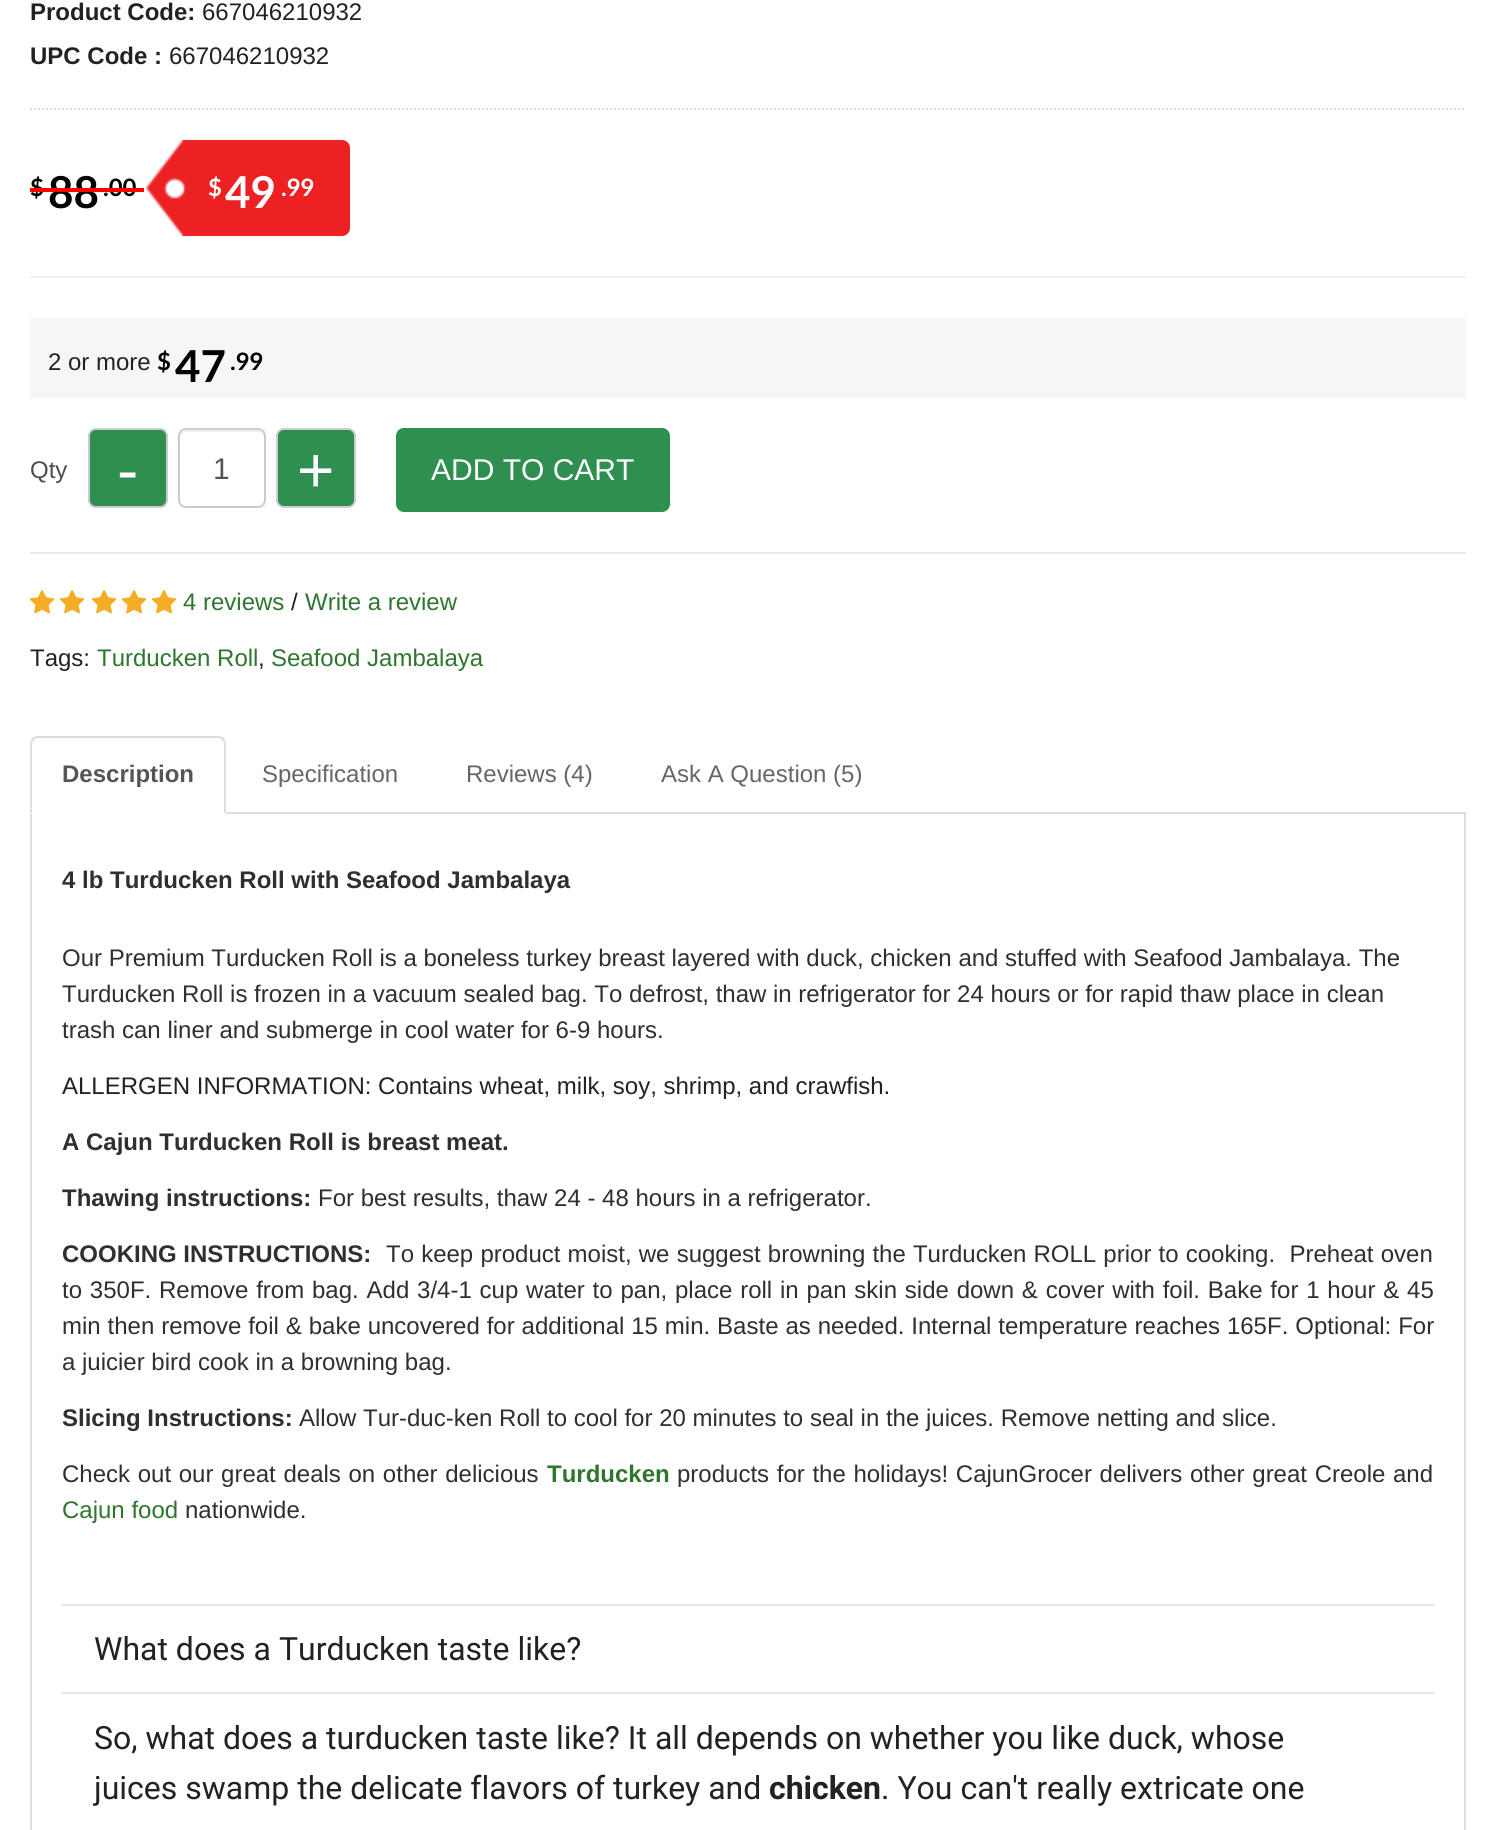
import math
import cairo


def write_spaced(ctx, x, y, s, letter, word):
	ctx.move_to(x, y)
	for ch in s:
		ctx.show_text(ch)
		ctx.rel_move_to(letter + word * (ch == ' '), 0)

def round_path(ctx, x, y, w, h, r):
	ctx.new_sub_path()
	for i, (u, v) in enumerate([(x + w - r, y + h - r), (x + r, y + h - r), (x + r, y + r), (x + w - r, y + r)]):
		ctx.arc(u, v, r, i * math.pi / 2, (i + 1) * math.pi / 2)
	ctx.close_path()

def paste(ctx, path, x, y, w, h):
	ctx.save()
	ctx.set_source_surface(cairo.ImageSurface.create_from_png(path), x, y)
	ctx.rectangle(x, y, w, h)
	ctx.fill()
	ctx.restore()

def draw(ctx):
	ctx.set_source_rgb(1, 1, 1)
	ctx.paint()
	ctx.select_font_face('Liberation Sans', cairo.FONT_SLANT_NORMAL, cairo.FONT_WEIGHT_BOLD)
	ctx.set_font_size(24)
	ctx.set_source_rgb(0.133, 0.133, 0.133)
	ctx.move_to(30, 20)
	ctx.show_text('Product Code:')
	ctx.select_font_face('Liberation Sans')
	ctx.move_to(202, 20)
	ctx.show_text('667046210932')
	ctx.select_font_face('Liberation Sans', cairo.FONT_SLANT_NORMAL, cairo.FONT_WEIGHT_BOLD)
	ctx.move_to(30, 64)
	ctx.show_text('UPC Code :')
	ctx.select_font_face('Liberation Sans')
	ctx.move_to(169, 64)
	ctx.show_text('667046210932')
	ctx.new_path()
	ctx.move_to(30, 109)
	ctx.line_to(1466, 109)
	ctx.set_source_rgb(0.867, 0.867, 0.867)
	ctx.set_dash([2, 2])
	ctx.stroke()
	ctx.select_font_face('Lato', cairo.FONT_SLANT_NORMAL, cairo.FONT_WEIGHT_BOLD)
	ctx.set_source_rgb(0, 0, 0)
	ctx.move_to(30, 196)
	ctx.show_text('$')
	ctx.set_font_size(44)
	ctx.move_to(48, 208)
	ctx.show_text('88')
	ctx.set_font_size(24)
	ctx.move_to(103, 196)
	ctx.show_text('.00')
	ctx.set_source_rgb(1, 0, 0)
	ctx.rectangle(30, 188, 114, 4)
	ctx.fill()
	ctx.set_source_rgb(0.929, 0.129, 0.141)
	ctx.new_path()
	ctx.move_to(144, 140)
	ctx.line_to(342, 140)
	ctx.curve_to(346.5, 140, 350, 143.5, 350, 148)
	ctx.line_to(350, 228)
	ctx.curve_to(350, 232.5, 346.5, 236, 342, 236)
	ctx.line_to(144, 236)
	ctx.close_path()
	ctx.fill()
	paste(ctx, 'media/1.png', 144, 140, 42, 96)
	ctx.set_source_rgb(1, 1, 1)
	ctx.move_to(208, 196)
	ctx.show_text('$')
	ctx.set_font_size(44)
	ctx.move_to(225, 208)
	ctx.show_text('49')
	ctx.set_font_size(24)
	ctx.move_to(281, 196)
	ctx.show_text('.99')
	ctx.set_source_rgb(0.933, 0.933, 0.933)
	ctx.rectangle(30, 276, 1436, 2)
	ctx.fill()
	ctx.set_source_rgb(0.961, 0.961, 0.961)
	ctx.rectangle(30, 318, 1436, 80)
	ctx.fill()
	ctx.select_font_face('Liberation Sans')
	ctx.set_source_rgb(0.133, 0.133, 0.133)
	ctx.move_to(48, 370)
	ctx.show_text('2 or more')
	ctx.select_font_face('Lato', cairo.FONT_SLANT_NORMAL, cairo.FONT_WEIGHT_BOLD)
	ctx.set_source_rgb(0, 0, 0)
	ctx.move_to(157, 370)
	ctx.show_text('$')
	ctx.set_font_size(44)
	ctx.move_to(175, 382)
	ctx.show_text('47')
	ctx.set_font_size(24)
	ctx.move_to(230, 370)
	ctx.show_text('.99')
	ctx.set_source_rgb(0.918, 0.914, 0.914)
	ctx.rectangle(30, 552, 1436, 2)
	ctx.fill()
	ctx.select_font_face('Liberation Sans')
	ctx.set_source_rgb(0.302, 0.302, 0.302)
	ctx.move_to(30, 478)
	ctx.show_text('Qty')
	ctx.set_source_rgb(0.184, 0.561, 0.318)
	round_path(ctx, 89, 429, 78, 78, 7)
	ctx.fill_preserve()
	ctx.set_source_rgb(0.8, 0.8, 0.8)
	ctx.set_dash([])
	ctx.stroke()
	ctx.set_font_size(64)
	ctx.set_source_rgb(1, 1, 1)
	ctx.move_to(117, 492)
	ctx.show_text('-')
	ctx.set_source_rgb(0.925, 0.925, 0.925)
	ctx.new_path()
	ctx.move_to(186, 432)
	ctx.line_to(258, 432)
	ctx.curve_to(261, 432, 264, 435, 264, 438)
	ctx.curve_to(264, 427, 255, 430, 246, 430)
	ctx.line_to(198, 430)
	ctx.curve_to(189, 430, 180, 427, 180, 438)
	ctx.curve_to(180, 435, 183, 432, 186, 432)
	ctx.close_path()
	ctx.fill()
	round_path(ctx, 179, 429, 86, 78, 7)
	ctx.set_source_rgb(0.8, 0.8, 0.8)
	ctx.stroke()
	ctx.set_font_size(30)
	ctx.set_source_rgb(0.333, 0.333, 0.333)
	ctx.move_to(213, 479)
	ctx.show_text('1')
	ctx.set_source_rgb(0.184, 0.561, 0.318)
	round_path(ctx, 277, 429, 78, 78, 7)
	ctx.fill_preserve()
	ctx.set_source_rgb(0.8, 0.8, 0.8)
	ctx.stroke()
	ctx.set_font_size(64)
	ctx.set_source_rgb(1, 1, 1)
	ctx.move_to(297, 492)
	ctx.show_text('+')
	ctx.set_source_rgb(0.184, 0.561, 0.318)
	round_path(ctx, 396, 428, 274, 84, 8)
	ctx.fill()
	ctx.set_font_size(30)
	ctx.set_source_rgb(1, 1, 1)
	ctx.move_to(431, 480)
	ctx.show_text('ADD TO CART')
	paste(ctx, 'media/2.png', 30, 590, 25, 24)
	paste(ctx, 'media/3.png', 30, 590, 25, 24)
	paste(ctx, 'media/2.png', 60, 590, 25, 24)
	paste(ctx, 'media/3.png', 60, 590, 25, 24)
	paste(ctx, 'media/2.png', 92, 590, 25, 24)
	paste(ctx, 'media/3.png', 92, 590, 25, 24)
	paste(ctx, 'media/2.png', 122, 590, 25, 24)
	paste(ctx, 'media/3.png', 122, 590, 25, 24)
	paste(ctx, 'media/2.png', 152, 590, 25, 24)
	paste(ctx, 'media/3.png', 152, 590, 25, 24)
	ctx.set_font_size(24)
	ctx.set_source_rgb(0.18, 0.459, 0.18)
	ctx.move_to(183, 610)
	ctx.show_text('4 reviews')
	ctx.set_source_rgb(0.133, 0.133, 0.133)
	ctx.move_to(291, 610)
	ctx.show_text('/')
	ctx.set_source_rgb(0.18, 0.459, 0.18)
	ctx.move_to(305, 610)
	ctx.show_text('Write a review')
	ctx.set_source_rgb(0.133, 0.133, 0.133)
	ctx.move_to(30, 666)
	ctx.show_text('Tags:')
	ctx.set_source_rgb(0.18, 0.459, 0.18)
	ctx.move_to(97, 666)
	ctx.show_text('Turducken Roll')
	ctx.set_source_rgb(0.133, 0.133, 0.133)
	ctx.move_to(258, 666)
	ctx.show_text(',')
	ctx.set_source_rgb(0.18, 0.459, 0.18)
	ctx.move_to(271, 666)
	ctx.show_text('Seafood Jambalaya')
	ctx.set_source_rgb(0.867, 0.867, 0.867)
	ctx.rectangle(226, 812, 1240, 2)
	ctx.fill()
	ctx.new_path()
	ctx.move_to(38, 736)
	ctx.curve_to(36, 736, 34, 737, 32, 738)
	ctx.line_to(34, 740)
	ctx.curve_to(35, 739, 36, 738, 38, 738)
	ctx.line_to(218, 738)
	ctx.curve_to(220, 738, 221, 739, 222, 740)
	ctx.line_to(224, 738)
	ctx.curve_to(222, 737, 220, 736, 218, 736)
	ctx.close_path()
	ctx.fill()
	ctx.new_path()
	ctx.move_to(226, 814)
	ctx.line_to(226, 744)
	ctx.curve_to(226, 742, 225, 740, 224, 738)
	ctx.line_to(222, 740)
	ctx.curve_to(223, 741, 224, 742, 224, 744)
	ctx.line_to(224, 812)
	ctx.close_path()
	ctx.fill()
	ctx.new_path()
	ctx.move_to(30, 814)
	ctx.line_to(32, 812)
	ctx.line_to(32, 744)
	ctx.curve_to(32, 742, 33, 741, 34, 740)
	ctx.line_to(32, 738)
	ctx.curve_to(31, 740, 30, 742, 30, 744)
	ctx.close_path()
	ctx.fill()
	ctx.select_font_face('Liberation Sans', cairo.FONT_SLANT_NORMAL, cairo.FONT_WEIGHT_BOLD)
	ctx.set_source_rgb(0.333, 0.333, 0.333)
	ctx.move_to(62, 782)
	ctx.show_text('Description')
	ctx.select_font_face('Liberation Sans')
	ctx.set_source_rgb(0.4, 0.4, 0.4)
	for x, y, s in [
		(262, 782, 'Specification'),
		(466, 782, 'Reviews (4)'),
		(661, 782, 'Ask A Question (5)'),
	]:
		ctx.move_to(x, y)
		ctx.show_text(s)
	ctx.set_source_rgb(0.867, 0.867, 0.867)
	ctx.set_fill_rule(cairo.FILL_RULE_EVEN_ODD)
	ctx.new_path()
	ctx.move_to(30, 814)
	ctx.line_to(1466, 814)
	ctx.line_to(1466, 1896)
	ctx.curve_to(1466, 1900, 1462, 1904, 1458, 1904)
	ctx.line_to(38, 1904)
	ctx.curve_to(34, 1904, 30, 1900, 30, 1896)
	ctx.close_path()
	ctx.move_to(32, 814)
	ctx.line_to(1464, 814)
	ctx.line_to(1464, 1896)
	ctx.curve_to(1464, 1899, 1461, 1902, 1458, 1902)
	ctx.line_to(38, 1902)
	ctx.curve_to(35, 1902, 32, 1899, 32, 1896)
	ctx.close_path()
	ctx.fill()
	ctx.select_font_face('Liberation Sans', cairo.FONT_SLANT_NORMAL, cairo.FONT_WEIGHT_BOLD)
	ctx.set_source_rgb(0.184, 0.184, 0.184)
	ctx.move_to(62, 888)
	ctx.show_text('4 lb Turducken Roll with Seafood Jambalaya')
	ctx.select_font_face('Liberation Sans')
	for x, y, s in [
		(62, 966, 'Our Premium Turducken Roll is a boneless turkey breast layered with duck, chicken and stuffed with Seafood Jambalaya. The'),
		(62, 1002, 'Turducken Roll is frozen in a vacuum sealed bag. To defrost, thaw in refrigerator for 24 hours or for rapid thaw place in clean'),
		(62, 1038, 'trash can liner and submerge in cool water for 6-9 hours.'),
	]:
		ctx.move_to(x, y)
		ctx.show_text(s)
	ctx.set_source_rgb(0.133, 0.133, 0.133)
	ctx.move_to(62, 1094)
	ctx.show_text('ALLERGEN INFORMATION: Contains wheat, milk, soy, shrimp, and crawfish.')
	ctx.select_font_face('Liberation Sans', cairo.FONT_SLANT_NORMAL, cairo.FONT_WEIGHT_BOLD)
	ctx.set_source_rgb(0.184, 0.184, 0.184)
	ctx.move_to(62, 1150)
	ctx.show_text('A Cajun Turducken Roll is breast meat.')
	ctx.move_to(62, 1206)
	ctx.show_text('Thawing instructions:')
	ctx.select_font_face('Liberation Sans')
	ctx.move_to(318, 1206)
	ctx.show_text('For best results, thaw 24 - 48 hours in a refrigerator.')
	ctx.select_font_face('Liberation Sans', cairo.FONT_SLANT_NORMAL, cairo.FONT_WEIGHT_BOLD)
	ctx.move_to(62, 1262)
	ctx.show_text('COOKING INSTRUCTIONS:')
	ctx.select_font_face('Liberation Sans')
	write_spaced(ctx, 386, 1262, 'To keep product moist, we suggest browning the Turducken ROLL prior to cooking.  Preheat oven', 0, 0.5)
	write_spaced(ctx, 62, 1298, 'to 350F. Remove from bag. Add 3/4-1 cup water to pan, place roll in pan skin side down & cover with foil. Bake for 1 hour & 45', 0, 1.15)
	write_spaced(ctx, 62, 1334, 'min then remove foil & bake uncovered for additional 15 min. Baste as needed. Internal temperature reaches 165F. Optional: For', 0, 0.25)
	ctx.move_to(62, 1370)
	ctx.show_text('a juicier bird cook in a browning bag.')
	ctx.select_font_face('Liberation Sans', cairo.FONT_SLANT_NORMAL, cairo.FONT_WEIGHT_BOLD)
	ctx.move_to(62, 1426)
	ctx.show_text('Slicing Instructions:')
	ctx.select_font_face('Liberation Sans')
	ctx.move_to(299, 1426)
	ctx.show_text('Allow Tur-duc-ken Roll to cool for 20 minutes to seal in the juices. Remove netting and slice.')
	write_spaced(ctx, 62, 1482, 'Check out our great deals on other delicious', 0, 1)
	ctx.select_font_face('Liberation Sans', cairo.FONT_SLANT_NORMAL, cairo.FONT_WEIGHT_BOLD)
	ctx.set_source_rgb(0.18, 0.459, 0.18)
	ctx.move_to(547, 1482)
	ctx.show_text('Turducken')
	ctx.select_font_face('Liberation Sans')
	ctx.set_source_rgb(0.184, 0.184, 0.184)
	write_spaced(ctx, 677, 1482, 'products for the holidays! CajunGrocer delivers other great Creole and', 0, 1)
	ctx.set_source_rgb(0.18, 0.459, 0.18)
	ctx.move_to(62, 1518)
	ctx.show_text('Cajun food')
	ctx.set_source_rgb(0.184, 0.184, 0.184)
	ctx.move_to(185, 1518)
	ctx.show_text('nationwide.')
	ctx.set_source_rgb(0.898, 0.898, 0.898)
	ctx.rectangle(62, 1604, 1372, 2)
	ctx.fill()
	ctx.select_font_face('Roboto')
	ctx.set_font_size(32)
	ctx.set_source_rgb(0.133, 0.133, 0.133)
	ctx.move_to(94, 1660)
	ctx.show_text('What does a Turducken taste like?')
	ctx.set_source_rgb(0.898, 0.898, 0.898)
	ctx.rectangle(62, 1692, 1372, 2)
	ctx.fill()
	ctx.set_source_rgb(0.133, 0.133, 0.133)
	ctx.move_to(94, 1749)
	ctx.show_text('So, what does a turducken taste like? It all depends on whether you like duck, whose')
	ctx.move_to(94, 1799)
	ctx.show_text('juices swamp the delicate flavors of turkey and')
	ctx.select_font_face('Roboto', cairo.FONT_SLANT_NORMAL, cairo.FONT_WEIGHT_BOLD)
	ctx.move_to(769, 1799)
	ctx.show_text('chicken')
	ctx.select_font_face('Roboto')
	ctx.move_to(881, 1799)
	ctx.show_text('. You can\'t really extricate one')


surface = cairo.ImageSurface(cairo.FORMAT_RGB24, 1495, 1830)
ctx = cairo.Context(surface)
options = cairo.FontOptions()
options.set_hint_metrics(cairo.HINT_METRICS_OFF)
options.set_hint_style(cairo.HINT_STYLE_NONE)
ctx.set_font_options(options)
ctx.set_miter_limit(4)
draw(ctx)
surface.write_to_png('image.png')
